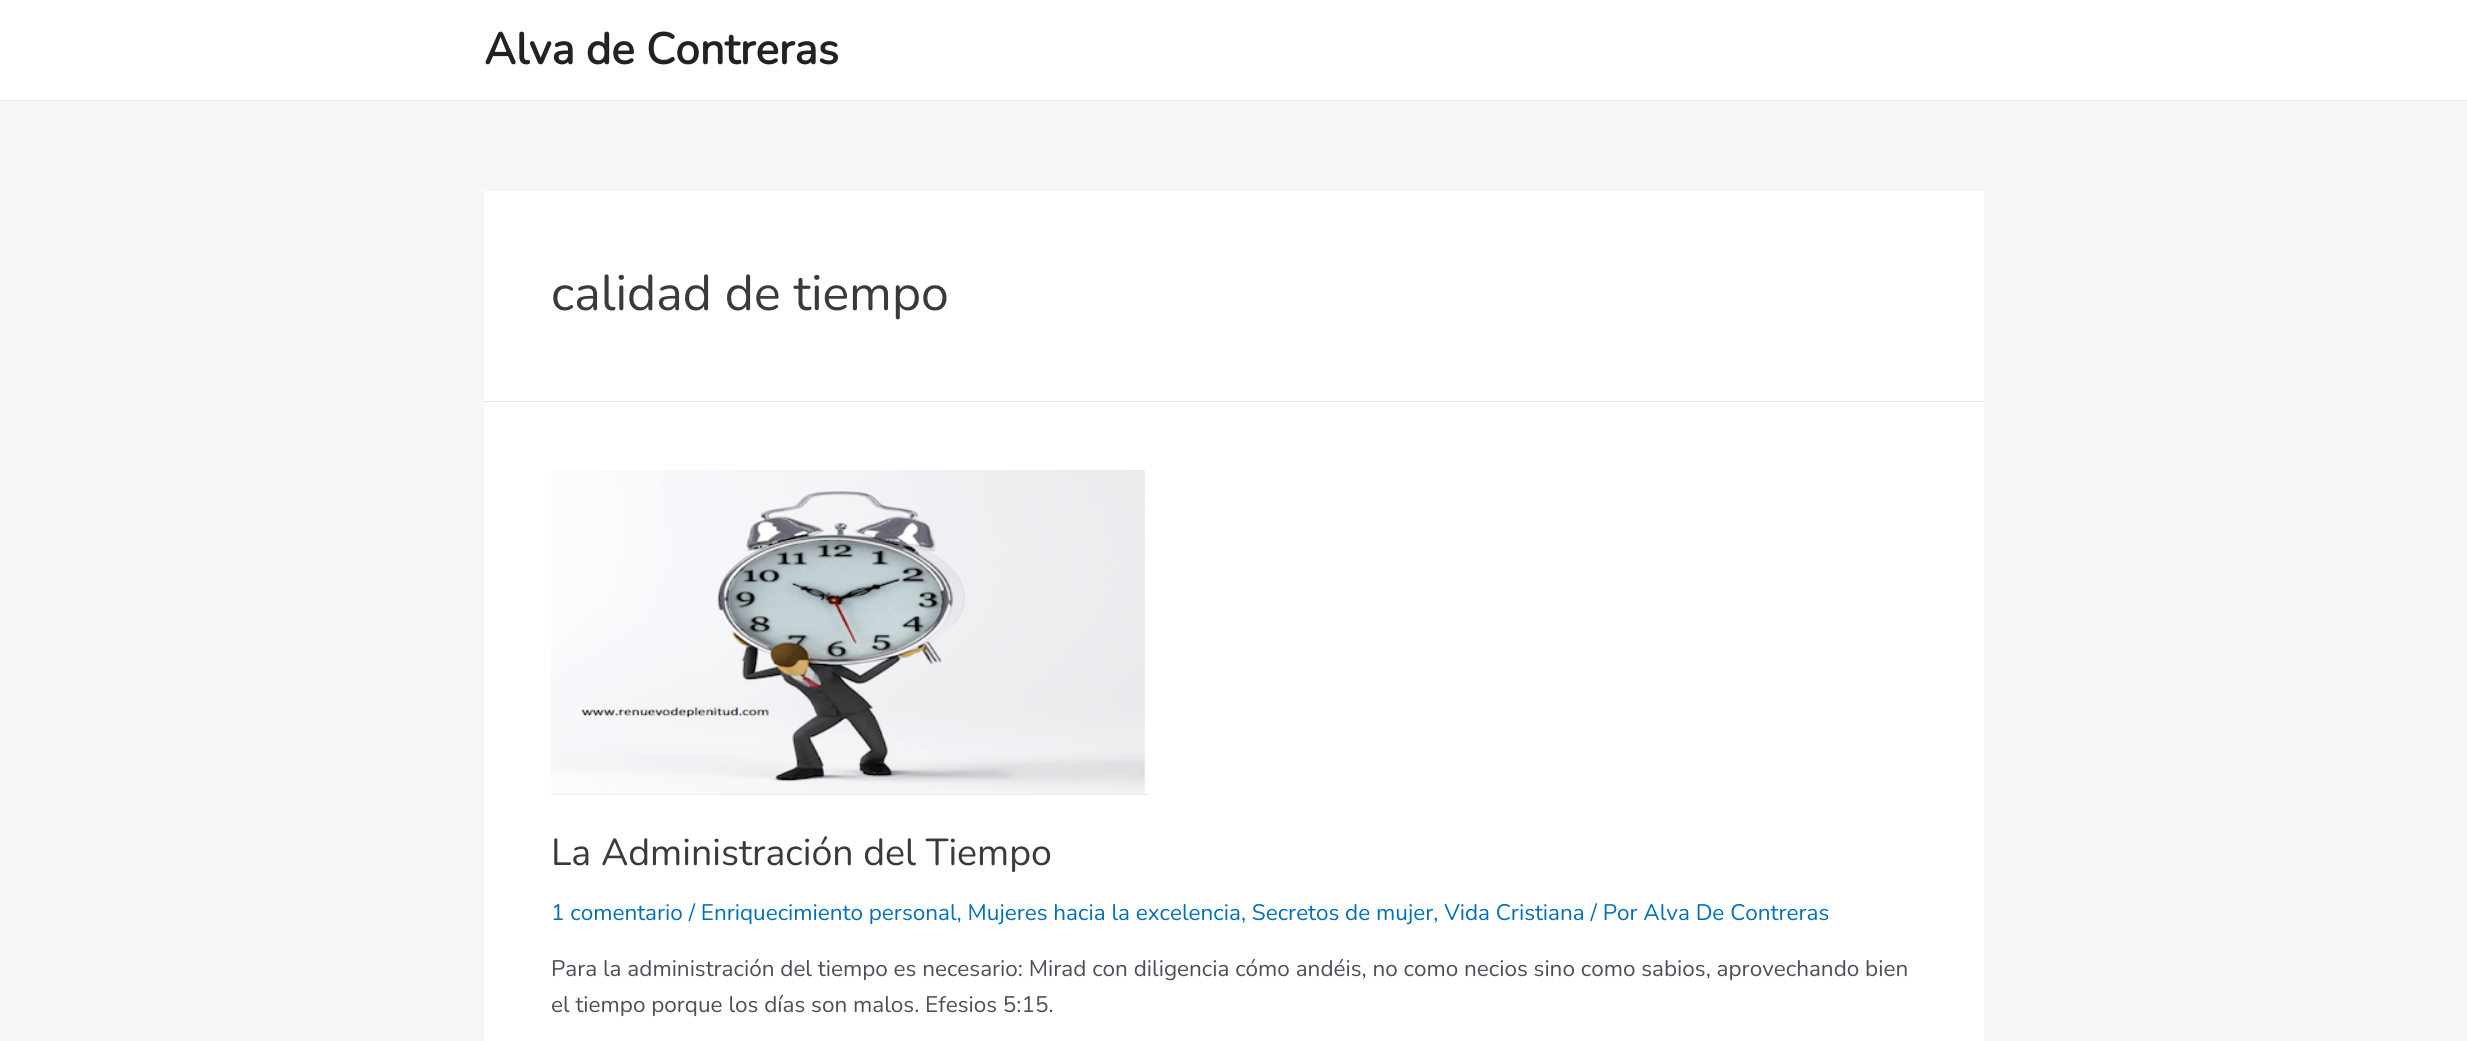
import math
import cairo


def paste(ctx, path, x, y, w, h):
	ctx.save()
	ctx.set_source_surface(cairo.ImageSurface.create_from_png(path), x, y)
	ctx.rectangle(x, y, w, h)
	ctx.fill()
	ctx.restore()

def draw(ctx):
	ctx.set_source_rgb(0.961, 0.961, 0.961)
	ctx.paint()
	ctx.set_source_rgb(1, 1, 1)
	ctx.rectangle(0, 0, 2467, 100)
	ctx.fill()
	ctx.set_source_rgb(0.918, 0.918, 0.918)
	ctx.rectangle(0, 100, 2467, 1)
	ctx.fill()
	ctx.select_font_face('Nunito', cairo.FONT_SLANT_NORMAL, cairo.FONT_WEIGHT_BOLD)
	ctx.set_font_size(43.75)
	ctx.set_source_rgb(0.133, 0.133, 0.133)
	ctx.move_to(484, 64)
	ctx.show_text('Alva de Contreras')
	ctx.set_source_rgb(1, 1, 1)
	ctx.rectangle(484, 191, 1500, 850)
	ctx.fill()
	ctx.set_source_rgb(0.898, 0.898, 0.898)
	ctx.rectangle(484, 401, 1500, 1)
	ctx.fill()
	ctx.select_font_face('Nunito ExtraLight')
	ctx.set_font_size(50)
	ctx.set_source_rgb(0.227, 0.227, 0.227)
	ctx.move_to(551, 310)
	ctx.show_text('calidad de tiempo')
	paste(ctx, 'media/1.png', 551, 470, 598, 325)
	ctx.set_font_size(37.5)
	ctx.move_to(551, 865)
	ctx.show_text('La Administración del Tiempo')
	ctx.set_font_size(22.5)
	ctx.set_source_rgb(0.004, 0.439, 0.725)
	ctx.move_to(551, 920)
	ctx.show_text('1 comentario / Enriquecimiento personal, Mujeres hacia la excelencia, Secretos de mujer, Vida Cristiana / Por Alva De Contreras')
	ctx.set_source_rgb(0.294, 0.31, 0.345)
	ctx.move_to(551, 976)
	ctx.show_text('Para la administración del tiempo es necesario: Mirad con diligencia cómo andéis, no como necios sino como sabios, aprovechando bien')
	ctx.move_to(551, 1012)
	ctx.show_text('el tiempo porque los días son malos. Efesios 5:15.')


surface = cairo.ImageSurface(cairo.FORMAT_RGB24, 2467, 1041)
ctx = cairo.Context(surface)
options = cairo.FontOptions()
options.set_hint_metrics(cairo.HINT_METRICS_OFF)
options.set_hint_style(cairo.HINT_STYLE_NONE)
ctx.set_font_options(options)
ctx.set_miter_limit(4)
draw(ctx)
surface.write_to_png('image.png')
